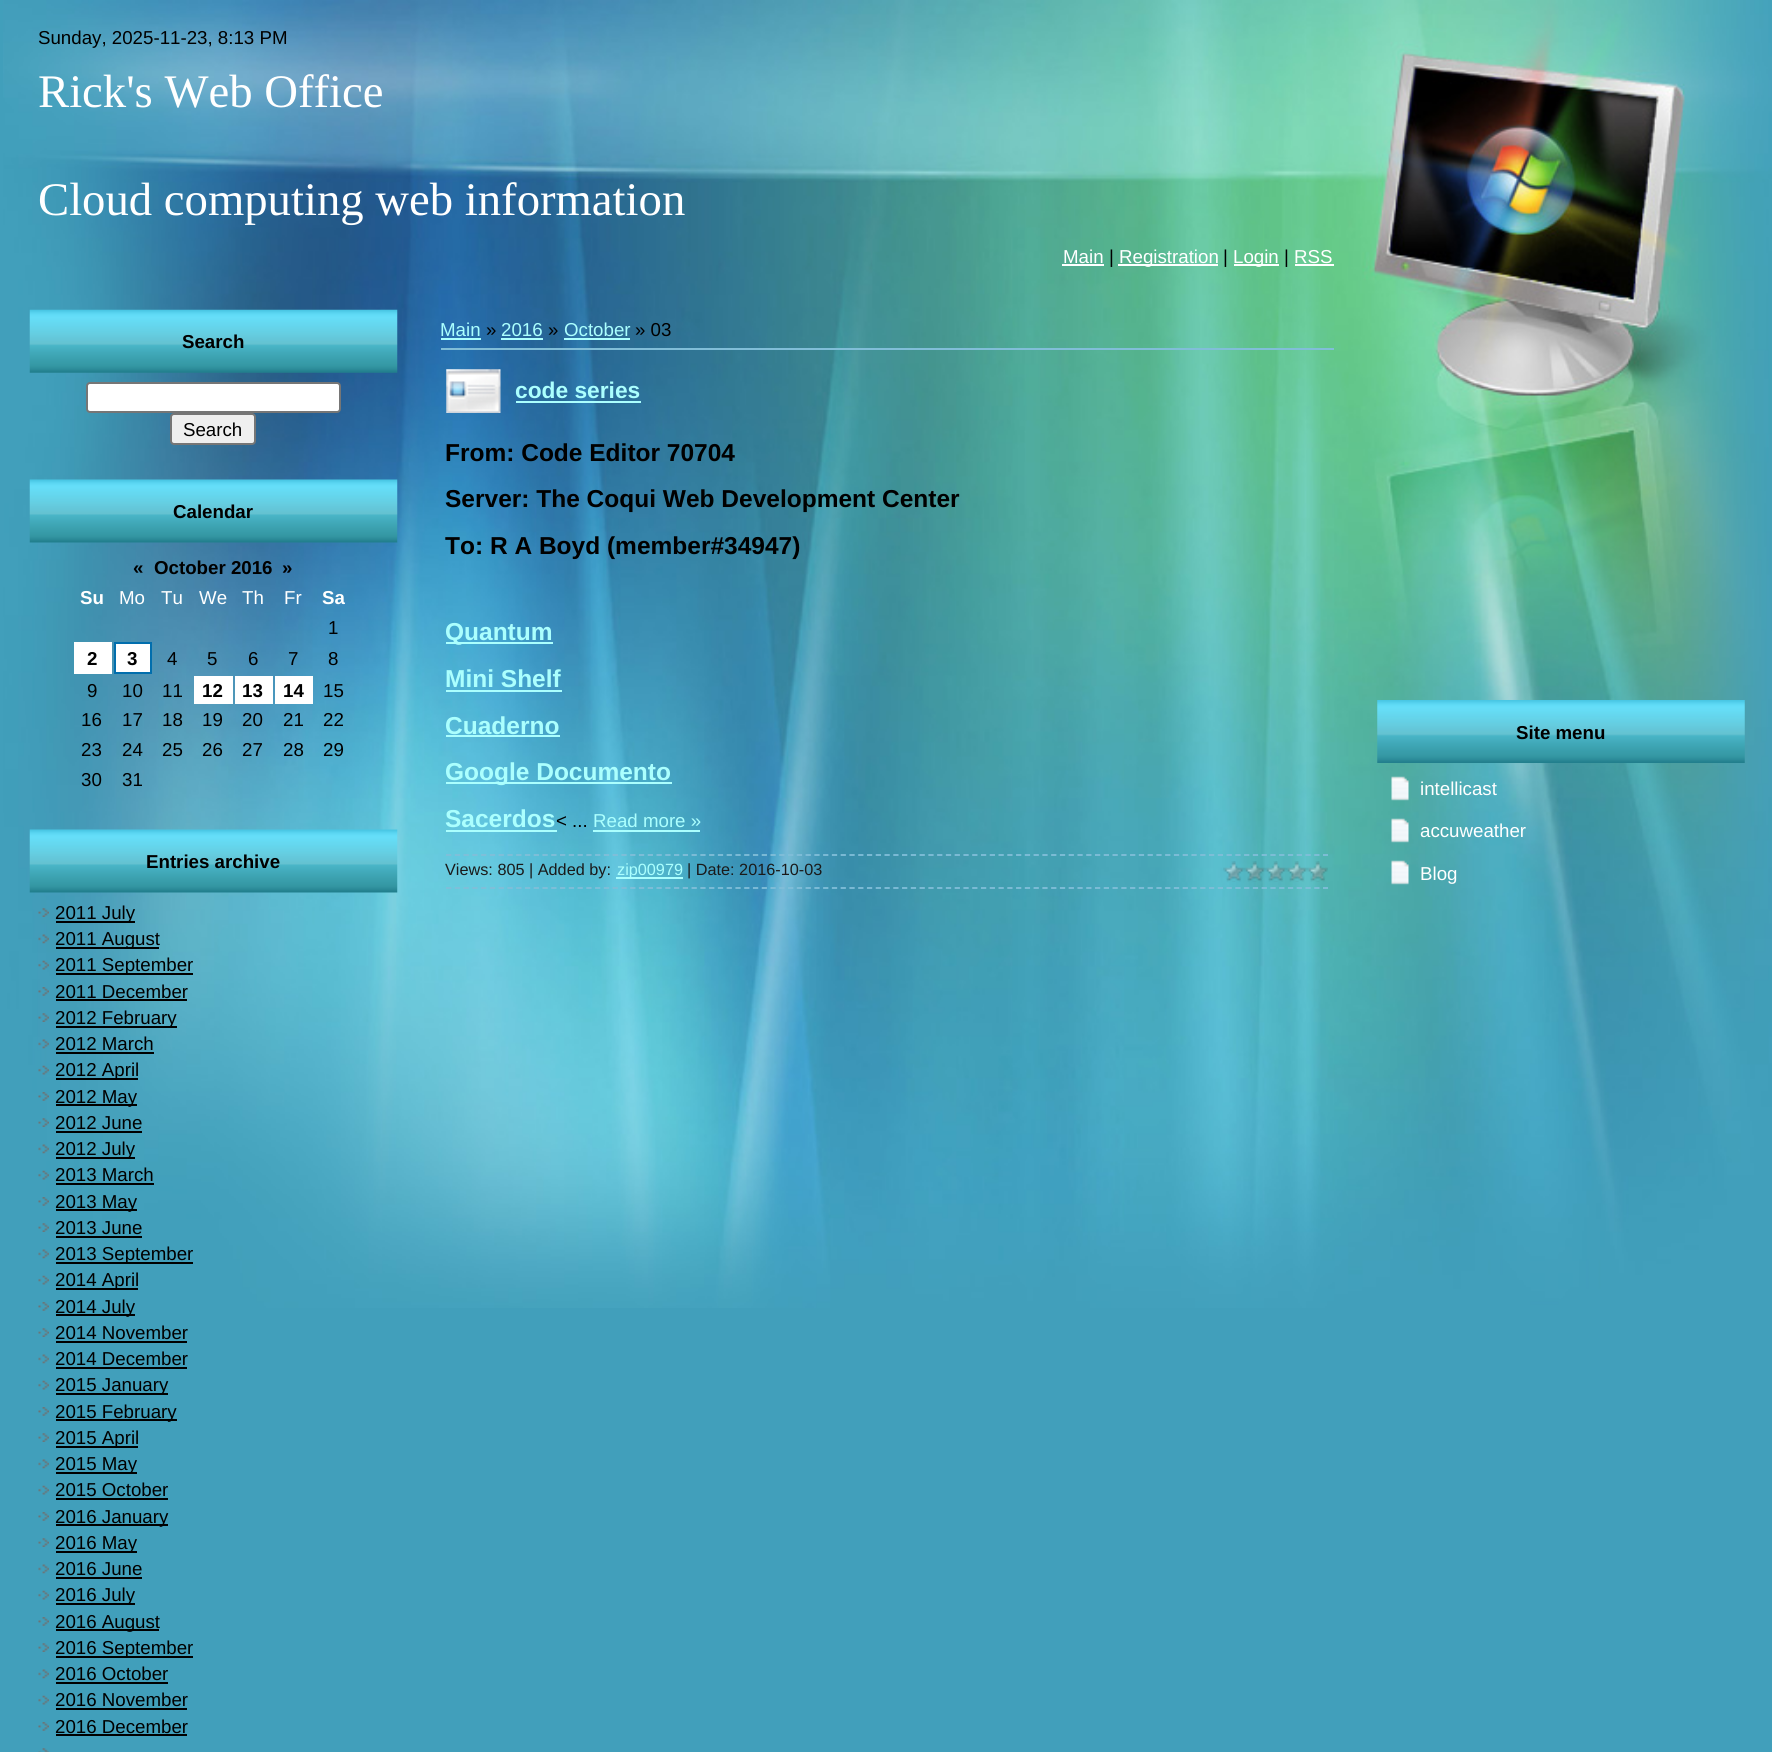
import math
import cairo


def round_path(ctx, x, y, w, h, r):
	ctx.new_sub_path()
	for i, (u, v) in enumerate([(x + w - r, y + h - r), (x + r, y + h - r), (x + r, y + r), (x + w - r, y + r)]):
		ctx.arc(u, v, r, i * math.pi / 2, (i + 1) * math.pi / 2)
	ctx.close_path()

def paste(ctx, path, x, y, w, h):
	ctx.save()
	ctx.set_source_surface(cairo.ImageSurface.create_from_png(path), x, y)
	ctx.rectangle(x, y, w, h)
	ctx.fill()
	ctx.restore()

def draw(ctx):
	ctx.set_source_rgb(0.255, 0.624, 0.733)
	ctx.paint()
	paste(ctx, 'media/1.png', 3, 0, 1769, 1308)
	ctx.select_font_face('Liberation Sans')
	ctx.set_font_size(18.7)
	ctx.set_source_rgb(0, 0, 0)
	ctx.move_to(38, 44)
	ctx.show_text('Sunday, 2025-11-23, 8:13 PM')
	ctx.select_font_face('Liberation Serif')
	ctx.set_font_size(46.7)
	ctx.set_source_rgb(1, 1, 1)
	ctx.move_to(38, 107)
	ctx.show_text('Rick\'s Web Office')
	ctx.move_to(38, 215)
	ctx.show_text('Cloud computing web information')
	ctx.select_font_face('Liberation Sans')
	ctx.set_font_size(18.7)
	ctx.move_to(1063, 263)
	ctx.show_text('Main')
	ctx.rectangle(1062, 264, 42, 2)
	ctx.fill()
	ctx.set_source_rgb(0, 0, 0)
	ctx.move_to(1109, 263)
	ctx.show_text('|')
	ctx.set_source_rgb(1, 1, 1)
	ctx.rectangle(1118, 264, 100, 2)
	ctx.fill()
	ctx.move_to(1119, 263)
	ctx.show_text('Registration')
	ctx.set_source_rgb(0, 0, 0)
	ctx.move_to(1223, 263)
	ctx.show_text('|')
	ctx.set_source_rgb(1, 1, 1)
	ctx.rectangle(1234, 264, 45, 2)
	ctx.fill()
	ctx.move_to(1233, 263)
	ctx.show_text('Login')
	ctx.set_source_rgb(0, 0, 0)
	ctx.move_to(1284, 263)
	ctx.show_text('|')
	ctx.set_source_rgb(1, 1, 1)
	ctx.move_to(1294, 263)
	ctx.show_text('RSS')
	ctx.rectangle(1295, 264, 39, 2)
	ctx.fill()
	paste(ctx, 'media/2.png', 1377, 700, 368, 63)
	ctx.select_font_face('Liberation Sans', cairo.FONT_SLANT_NORMAL, cairo.FONT_WEIGHT_BOLD)
	ctx.set_source_rgb(0, 0, 0)
	ctx.move_to(1516, 739)
	ctx.show_text('Site menu')
	paste(ctx, 'media/3.png', 1391, 776, 18, 25)
	ctx.select_font_face('Liberation Sans')
	ctx.set_source_rgb(1, 1, 1)
	ctx.move_to(1420, 795)
	ctx.show_text('intellicast')
	paste(ctx, 'media/4.png', 1391, 818, 18, 25)
	ctx.move_to(1420, 837)
	ctx.show_text('accuweather')
	paste(ctx, 'media/5.png', 1391, 860, 18, 25)
	ctx.move_to(1420, 880)
	ctx.show_text('Blog')
	paste(ctx, 'media/6.png', 29, 309, 369, 64)
	ctx.select_font_face('Liberation Sans', cairo.FONT_SLANT_NORMAL, cairo.FONT_WEIGHT_BOLD)
	ctx.set_source_rgb(0, 0, 0)
	ctx.move_to(182, 348)
	ctx.show_text('Search')
	ctx.set_source_rgb(1, 1, 1)
	round_path(ctx, 87, 383, 253, 29, 3)
	ctx.fill_preserve()
	ctx.set_source_rgb(0.463, 0.463, 0.463)
	ctx.stroke()
	ctx.set_source_rgb(0.937, 0.937, 0.937)
	round_path(ctx, 171, 414, 84, 30, 3)
	ctx.fill_preserve()
	ctx.set_source_rgb(0.463, 0.463, 0.463)
	ctx.stroke()
	ctx.select_font_face('Liberation Sans')
	ctx.set_source_rgb(0, 0, 0)
	ctx.move_to(183, 436)
	ctx.show_text('Search')
	paste(ctx, 'media/7.png', 29, 479, 369, 64)
	ctx.select_font_face('Liberation Sans', cairo.FONT_SLANT_NORMAL, cairo.FONT_WEIGHT_BOLD)
	for x, y, s in [
		(173, 518, 'Calendar'),
		(133, 574, '«'),
		(154, 574, 'October 2016'),
		(282, 574, '»'),
	]:
		ctx.move_to(x, y)
		ctx.show_text(s)
	ctx.set_source_rgb(1, 1, 1)
	ctx.move_to(80, 604)
	ctx.show_text('Su')
	ctx.select_font_face('Liberation Sans')
	for x, y, s in [
		(119, 604, 'Mo'),
		(161, 604, 'Tu'),
		(199, 604, 'We'),
		(242, 604, 'Th'),
		(284, 604, 'Fr'),
	]:
		ctx.move_to(x, y)
		ctx.show_text(s)
	ctx.select_font_face('Liberation Sans', cairo.FONT_SLANT_NORMAL, cairo.FONT_WEIGHT_BOLD)
	ctx.move_to(322, 604)
	ctx.show_text('Sa')
	ctx.select_font_face('Liberation Sans')
	ctx.set_source_rgb(0, 0, 0)
	ctx.move_to(328, 634)
	ctx.show_text('1')
	ctx.set_source_rgb(1, 1, 1)
	ctx.rectangle(74, 642, 38, 32)
	ctx.fill()
	ctx.select_font_face('Liberation Sans', cairo.FONT_SLANT_NORMAL, cairo.FONT_WEIGHT_BOLD)
	ctx.set_source_rgb(0, 0, 0)
	ctx.move_to(87, 665)
	ctx.show_text('2')
	ctx.set_source_rgb(1, 1, 1)
	ctx.rectangle(115, 643, 36, 30)
	ctx.fill_preserve()
	ctx.set_source_rgb(0.004, 0.431, 0.678)
	ctx.stroke()
	ctx.set_source_rgb(0, 0, 0)
	ctx.move_to(127, 665)
	ctx.show_text('3')
	ctx.select_font_face('Liberation Sans')
	for x, y, s in [
		(167, 665, '4'),
		(207, 665, '5'),
		(248, 665, '6'),
		(288, 665, '7'),
		(328, 665, '8'),
		(87, 697, '9'),
		(122, 697, '10'),
		(162, 697, '11'),
	]:
		ctx.move_to(x, y)
		ctx.show_text(s)
	ctx.set_source_rgb(1, 1, 1)
	ctx.rectangle(194, 676, 39, 28)
	ctx.fill()
	ctx.select_font_face('Liberation Sans', cairo.FONT_SLANT_NORMAL, cairo.FONT_WEIGHT_BOLD)
	ctx.set_source_rgb(0, 0, 0)
	ctx.move_to(202, 697)
	ctx.show_text('12')
	ctx.set_source_rgb(1, 1, 1)
	ctx.rectangle(235, 676, 38, 28)
	ctx.fill()
	ctx.set_source_rgb(0, 0, 0)
	ctx.move_to(242, 697)
	ctx.show_text('13')
	ctx.set_source_rgb(1, 1, 1)
	ctx.rectangle(275, 676, 38, 28)
	ctx.fill()
	ctx.set_source_rgb(0, 0, 0)
	ctx.move_to(283, 697)
	ctx.show_text('14')
	ctx.select_font_face('Liberation Sans')
	for x, y, s in [
		(323, 697, '15'),
		(81, 726, '16'),
		(122, 726, '17'),
		(162, 726, '18'),
		(202, 726, '19'),
		(242, 726, '20'),
		(283, 726, '21'),
		(323, 726, '22'),
		(81, 756, '23'),
		(122, 756, '24'),
		(162, 756, '25'),
		(202, 756, '26'),
		(242, 756, '27'),
		(283, 756, '28'),
		(323, 756, '29'),
		(81, 786, '30'),
		(122, 786, '31'),
	]:
		ctx.move_to(x, y)
		ctx.show_text(s)
	paste(ctx, 'media/8.png', 29, 829, 369, 64)
	ctx.select_font_face('Liberation Sans', cairo.FONT_SLANT_NORMAL, cairo.FONT_WEIGHT_BOLD)
	ctx.move_to(146, 868)
	ctx.show_text('Entries archive')
	paste(ctx, 'media/9.png', 38, 908, 11, 9)
	ctx.rectangle(56, 921, 79, 2)
	ctx.fill()
	ctx.select_font_face('Liberation Sans')
	ctx.move_to(55, 919)
	ctx.show_text('2011 July')
	paste(ctx, 'media/10.png', 38, 934, 11, 10)
	ctx.rectangle(56, 947, 103, 2)
	ctx.fill()
	ctx.move_to(55, 945)
	ctx.show_text('2011 August')
	paste(ctx, 'media/11.png', 38, 960, 11, 10)
	ctx.rectangle(56, 973, 137, 2)
	ctx.fill()
	ctx.move_to(55, 971)
	ctx.show_text('2011 September')
	paste(ctx, 'media/12.png', 38, 987, 11, 9)
	ctx.move_to(55, 998)
	ctx.show_text('2011 December')
	ctx.rectangle(56, 999, 131, 2)
	ctx.fill()
	paste(ctx, 'media/13.png', 38, 1013, 11, 9)
	ctx.rectangle(56, 1026, 121, 2)
	ctx.fill()
	ctx.move_to(55, 1024)
	ctx.show_text('2012 February')
	paste(ctx, 'media/14.png', 38, 1039, 11, 10)
	ctx.move_to(55, 1050)
	ctx.show_text('2012 March')
	ctx.rectangle(56, 1052, 98, 2)
	ctx.fill()
	paste(ctx, 'media/15.png', 38, 1065, 11, 10)
	ctx.rectangle(56, 1078, 82, 2)
	ctx.fill()
	ctx.move_to(55, 1076)
	ctx.show_text('2012 April')
	paste(ctx, 'media/16.png', 38, 1092, 11, 9)
	ctx.rectangle(56, 1104, 81, 2)
	ctx.fill()
	ctx.move_to(55, 1103)
	ctx.show_text('2012 May')
	paste(ctx, 'media/17.png', 38, 1118, 11, 9)
	ctx.move_to(55, 1129)
	ctx.show_text('2012 June')
	ctx.rectangle(56, 1131, 86, 2)
	ctx.fill()
	paste(ctx, 'media/18.png', 38, 1144, 11, 10)
	ctx.rectangle(56, 1157, 79, 2)
	ctx.fill()
	ctx.move_to(55, 1155)
	ctx.show_text('2012 July')
	paste(ctx, 'media/19.png', 38, 1170, 11, 10)
	ctx.move_to(55, 1181)
	ctx.show_text('2013 March')
	ctx.rectangle(56, 1183, 98, 2)
	ctx.fill()
	paste(ctx, 'media/20.png', 38, 1197, 11, 9)
	ctx.rectangle(56, 1209, 81, 2)
	ctx.fill()
	ctx.move_to(55, 1208)
	ctx.show_text('2013 May')
	paste(ctx, 'media/21.png', 38, 1223, 11, 9)
	ctx.move_to(55, 1234)
	ctx.show_text('2013 June')
	ctx.rectangle(56, 1236, 86, 2)
	ctx.fill()
	paste(ctx, 'media/22.png', 38, 1249, 11, 10)
	ctx.rectangle(56, 1262, 137, 2)
	ctx.fill()
	ctx.move_to(55, 1260)
	ctx.show_text('2013 September')
	paste(ctx, 'media/23.png', 38, 1275, 11, 10)
	ctx.rectangle(56, 1288, 82, 2)
	ctx.fill()
	ctx.move_to(55, 1286)
	ctx.show_text('2014 April')
	paste(ctx, 'media/20.png', 38, 1302, 11, 9)
	ctx.rectangle(56, 1314, 79, 2)
	ctx.fill()
	ctx.move_to(55, 1313)
	ctx.show_text('2014 July')
	paste(ctx, 'media/21.png', 38, 1328, 11, 9)
	ctx.move_to(55, 1339)
	ctx.show_text('2014 November')
	ctx.rectangle(56, 1341, 131, 2)
	ctx.fill()
	paste(ctx, 'media/22.png', 38, 1354, 11, 10)
	ctx.move_to(55, 1365)
	ctx.show_text('2014 December')
	ctx.rectangle(56, 1367, 131, 2)
	ctx.fill()
	paste(ctx, 'media/23.png', 38, 1380, 11, 10)
	ctx.rectangle(56, 1393, 112, 2)
	ctx.fill()
	ctx.move_to(55, 1391)
	ctx.show_text('2015 January')
	paste(ctx, 'media/20.png', 38, 1407, 11, 9)
	ctx.rectangle(56, 1419, 121, 2)
	ctx.fill()
	ctx.move_to(55, 1418)
	ctx.show_text('2015 February')
	paste(ctx, 'media/21.png', 38, 1433, 11, 9)
	ctx.rectangle(56, 1446, 82, 2)
	ctx.fill()
	ctx.move_to(55, 1444)
	ctx.show_text('2015 April')
	paste(ctx, 'media/22.png', 38, 1459, 11, 10)
	ctx.rectangle(56, 1472, 81, 2)
	ctx.fill()
	ctx.move_to(55, 1470)
	ctx.show_text('2015 May')
	paste(ctx, 'media/23.png', 38, 1485, 11, 10)
	ctx.move_to(55, 1496)
	ctx.show_text('2015 October')
	ctx.rectangle(56, 1498, 112, 2)
	ctx.fill()
	paste(ctx, 'media/20.png', 38, 1512, 11, 9)
	ctx.rectangle(56, 1524, 112, 2)
	ctx.fill()
	ctx.move_to(55, 1523)
	ctx.show_text('2016 January')
	paste(ctx, 'media/21.png', 38, 1538, 11, 9)
	ctx.rectangle(56, 1551, 81, 2)
	ctx.fill()
	ctx.move_to(55, 1549)
	ctx.show_text('2016 May')
	paste(ctx, 'media/22.png', 38, 1564, 11, 10)
	ctx.move_to(55, 1575)
	ctx.show_text('2016 June')
	ctx.rectangle(56, 1577, 86, 2)
	ctx.fill()
	paste(ctx, 'media/23.png', 38, 1590, 11, 10)
	ctx.rectangle(56, 1603, 79, 2)
	ctx.fill()
	ctx.move_to(55, 1601)
	ctx.show_text('2016 July')
	paste(ctx, 'media/20.png', 38, 1617, 11, 9)
	ctx.rectangle(56, 1629, 103, 2)
	ctx.fill()
	ctx.move_to(55, 1628)
	ctx.show_text('2016 August')
	paste(ctx, 'media/21.png', 38, 1643, 11, 9)
	ctx.rectangle(56, 1656, 137, 2)
	ctx.fill()
	ctx.move_to(55, 1654)
	ctx.show_text('2016 September')
	paste(ctx, 'media/22.png', 38, 1669, 11, 10)
	ctx.move_to(55, 1680)
	ctx.show_text('2016 October')
	ctx.rectangle(56, 1682, 112, 2)
	ctx.fill()
	paste(ctx, 'media/23.png', 38, 1695, 11, 10)
	ctx.move_to(55, 1706)
	ctx.show_text('2016 November')
	ctx.rectangle(56, 1708, 131, 2)
	ctx.fill()
	paste(ctx, 'media/20.png', 38, 1722, 11, 9)
	ctx.move_to(55, 1733)
	ctx.show_text('2016 December')
	ctx.rectangle(56, 1734, 131, 2)
	ctx.fill()
	paste(ctx, 'media/24.png', 38, 1748, 11, 4)
	ctx.set_source_rgb(0.671, 1, 0.996)
	ctx.move_to(440, 336)
	ctx.show_text('Main')
	ctx.rectangle(441, 338, 40, 2)
	ctx.fill()
	ctx.set_source_rgb(0, 0, 0)
	ctx.move_to(486, 336)
	ctx.show_text('»')
	ctx.set_source_rgb(0.671, 1, 0.996)
	ctx.move_to(501, 336)
	ctx.show_text('2016')
	ctx.rectangle(501, 338, 42, 2)
	ctx.fill()
	ctx.set_source_rgb(0, 0, 0)
	ctx.move_to(548, 336)
	ctx.show_text('»')
	ctx.set_source_rgb(0.671, 1, 0.996)
	ctx.move_to(564, 336)
	ctx.show_text('October')
	ctx.rectangle(564, 338, 66, 2)
	ctx.fill()
	ctx.set_source_rgb(0, 0, 0)
	ctx.move_to(635, 336)
	ctx.show_text('» 03')
	ctx.set_source_rgb(0.506, 0.745, 0.847)
	ctx.rectangle(441, 348, 893, 2)
	ctx.fill()
	paste(ctx, 'media/25.png', 446, 369, 55, 44)
	ctx.select_font_face('Liberation Sans', cairo.FONT_SLANT_NORMAL, cairo.FONT_WEIGHT_BOLD)
	ctx.set_font_size(22.75)
	ctx.set_source_rgb(0.671, 1, 0.996)
	ctx.move_to(515, 398)
	ctx.show_text('code series')
	ctx.rectangle(516, 401, 125, 2)
	ctx.fill()
	ctx.set_font_size(24.5)
	ctx.set_source_rgb(0, 0, 0)
	for x, y, s in [
		(445, 461, 'From: Code Editor 70704'),
		(445, 507, 'Server: The Coqui Web Development Center'),
		(445, 554, 'To: R A Boyd (member#34947)'),
	]:
		ctx.move_to(x, y)
		ctx.show_text(s)
	ctx.set_source_rgb(0.671, 1, 0.996)
	ctx.rectangle(446, 642, 107, 2)
	ctx.fill()
	ctx.move_to(445, 640)
	ctx.show_text('Quantum')
	ctx.move_to(445, 687)
	ctx.show_text('Mini Shelf')
	ctx.rectangle(446, 690, 116, 2)
	ctx.fill()
	ctx.move_to(445, 734)
	ctx.show_text('Cuaderno')
	ctx.rectangle(446, 735, 114, 2)
	ctx.fill()
	ctx.rectangle(446, 782, 226, 2)
	ctx.fill()
	ctx.move_to(445, 780)
	ctx.show_text('Google Documento')
	ctx.move_to(445, 827)
	ctx.show_text('Sacerdos')
	ctx.rectangle(446, 830, 111, 2)
	ctx.fill()
	ctx.select_font_face('Liberation Sans')
	ctx.set_font_size(18.7)
	ctx.set_source_rgb(0, 0, 0)
	ctx.move_to(556, 827)
	ctx.show_text('< ...')
	ctx.set_source_rgb(0.671, 1, 0.996)
	ctx.move_to(593, 827)
	ctx.show_text('Read more »')
	ctx.rectangle(593, 830, 107, 2)
	ctx.fill()
	ctx.new_path()
	ctx.move_to(446, 855)
	ctx.line_to(1328, 855)
	ctx.set_source_rgb(0.506, 0.745, 0.847)
	ctx.set_line_width(1.8)
	ctx.set_dash([5.25, 3.52])
	ctx.stroke()
	ctx.new_path()
	ctx.move_to(446, 888)
	ctx.line_to(1328, 888)
	ctx.stroke()
	ctx.set_font_size(16.25)
	ctx.set_source_rgb(0.102, 0.102, 0.102)
	ctx.move_to(445, 875)
	ctx.show_text('Views: 805 | Added by:')
	ctx.set_source_rgb(0.671, 1, 0.996)
	ctx.rectangle(616, 877, 67, 2)
	ctx.fill()
	ctx.move_to(617, 875)
	ctx.show_text('zip00979')
	ctx.set_source_rgb(0.102, 0.102, 0.102)
	ctx.move_to(687, 875)
	ctx.show_text('| Date: 2016-10-03')
	paste(ctx, 'media/26.png', 1223, 861, 105, 21)


surface = cairo.ImageSurface(cairo.FORMAT_RGB24, 1772, 1752)
ctx = cairo.Context(surface)
options = cairo.FontOptions()
options.set_hint_metrics(cairo.HINT_METRICS_OFF)
options.set_hint_style(cairo.HINT_STYLE_NONE)
ctx.set_font_options(options)
ctx.set_miter_limit(4)
draw(ctx)
surface.write_to_png('image.png')
